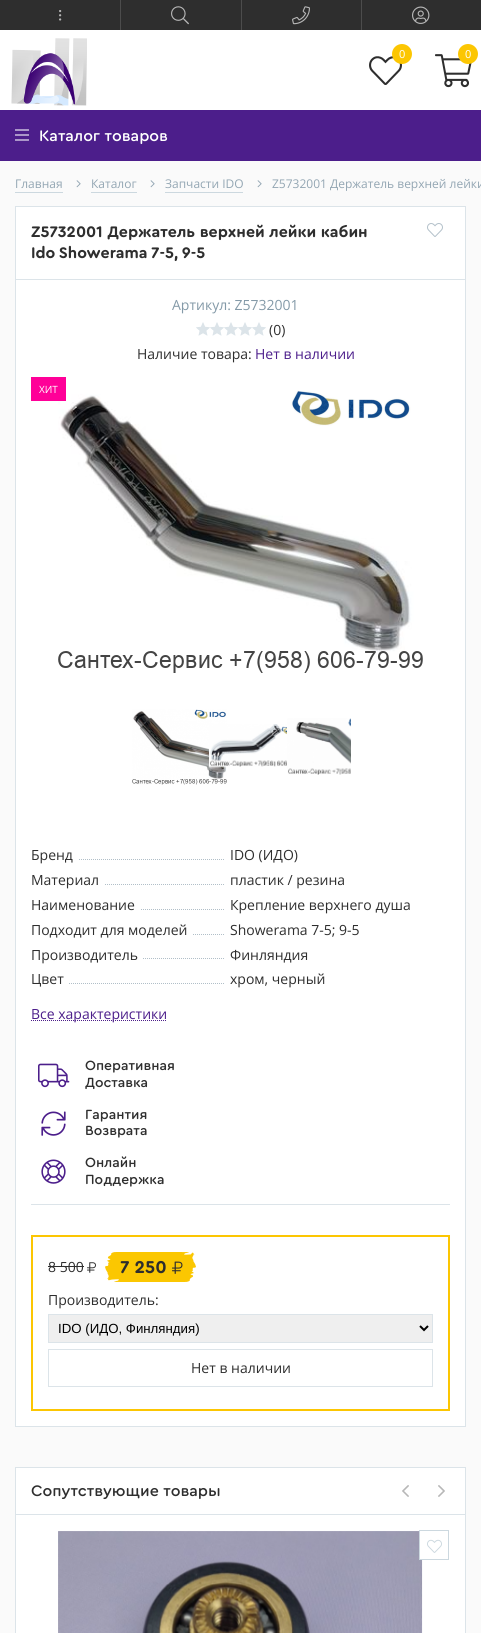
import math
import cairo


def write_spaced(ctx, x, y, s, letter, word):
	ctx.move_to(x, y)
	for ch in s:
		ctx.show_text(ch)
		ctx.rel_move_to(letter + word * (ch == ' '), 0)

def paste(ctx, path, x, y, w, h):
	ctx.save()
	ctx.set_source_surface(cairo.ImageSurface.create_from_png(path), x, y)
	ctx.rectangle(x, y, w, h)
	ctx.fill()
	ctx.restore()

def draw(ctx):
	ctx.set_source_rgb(0.98, 0.98, 0.98)
	ctx.paint()
	ctx.set_source_rgb(0.18, 0.18, 0.18)
	ctx.rectangle(0, 0, 481, 30)
	ctx.fill()
	paste(ctx, 'media/1.png', 59, 10, 3, 11)
	ctx.set_source_rgb(0.298, 0.298, 0.298)
	ctx.rectangle(120, 0, 1, 30)
	ctx.fill()
	paste(ctx, 'media/2.png', 171, 6, 18, 19)
	ctx.rectangle(241, 0, 1, 30)
	ctx.fill()
	paste(ctx, 'media/3.png', 292, 6, 18, 19)
	ctx.rectangle(361, 0, 1, 30)
	ctx.fill()
	paste(ctx, 'media/4.png', 412, 6, 18, 18)
	ctx.set_source_rgb(1, 1, 1)
	ctx.rectangle(0, 30, 481, 80)
	ctx.fill()
	paste(ctx, 'media/5.png', 11, 38, 76, 68)
	paste(ctx, 'media/6.png', 369, 56, 33, 29)
	ctx.set_source_rgb(0.988, 0.776, 0.008)
	ctx.arc(402, 54, 10, 0, 2 * math.pi)
	ctx.fill()
	ctx.select_font_face('Open Sans')
	ctx.set_font_size(11)
	ctx.set_source_rgb(1, 1, 1)
	ctx.move_to(399, 58)
	ctx.show_text('0')
	paste(ctx, 'media/7.png', 435, 54, 37, 34)
	ctx.set_source_rgb(0.988, 0.776, 0.008)
	ctx.arc(468, 54, 10, 0, 2 * math.pi)
	ctx.fill()
	ctx.set_source_rgb(1, 1, 1)
	ctx.move_to(465, 58)
	ctx.show_text('0')
	ctx.set_source_rgb(0.298, 0.118, 0.545)
	ctx.rectangle(0, 110, 481, 51)
	ctx.fill()
	paste(ctx, 'media/8.png', 15, 129, 14, 12)
	ctx.select_font_face('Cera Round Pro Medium')
	ctx.set_font_size(16)
	ctx.set_source_rgb(1, 1, 1)
	ctx.move_to(39, 141)
	ctx.show_text('Каталог товаров')
	ctx.select_font_face('Open Sans')
	ctx.set_font_size(12)
	ctx.set_source_rgb(0.576, 0.651, 0.702)
	ctx.move_to(15, 188)
	ctx.show_text('Главная')
	ctx.set_source_rgb(0.8, 0.847, 0.875)
	ctx.rectangle(15, 192, 48, 1)
	ctx.fill()
	paste(ctx, 'media/9.png', 76, 180, 5, 8)
	ctx.set_source_rgb(0.576, 0.651, 0.702)
	ctx.move_to(91, 188)
	ctx.show_text('Каталог')
	ctx.set_source_rgb(0.8, 0.847, 0.875)
	ctx.rectangle(91, 192, 46, 1)
	ctx.fill()
	paste(ctx, 'media/9.png', 150, 180, 5, 8)
	ctx.set_source_rgb(0.576, 0.651, 0.702)
	ctx.move_to(165, 188)
	ctx.show_text('Запчасти IDO')
	ctx.set_source_rgb(0.8, 0.847, 0.875)
	ctx.rectangle(165, 192, 78, 1)
	ctx.fill()
	paste(ctx, 'media/9.png', 257, 180, 5, 8)
	ctx.set_source_rgb(0.576, 0.651, 0.702)
	ctx.move_to(272, 188)
	ctx.show_text('Z5732001 Держатель верхней лейки')
	ctx.set_source_rgb(1, 1, 1)
	ctx.rectangle(15.5, 206.5, 450, 1220)
	ctx.fill_preserve()
	ctx.set_source_rgb(0.863, 0.894, 0.914)
	ctx.set_line_width(1)
	ctx.stroke()
	ctx.select_font_face('Cera Round Pro', cairo.FONT_SLANT_NORMAL, cairo.FONT_WEIGHT_BOLD)
	ctx.set_font_size(16)
	ctx.set_source_rgb(0.18, 0.18, 0.18)
	ctx.move_to(31, 237)
	ctx.show_text('Z5732001 Держатель верхней лейки кабин')
	write_spaced(ctx, 31, 258, 'Ido Showerama 7-5, 9-5', 0, -1)
	paste(ctx, 'media/10.png', 427, 223, 16, 14)
	ctx.set_source_rgb(0.863, 0.894, 0.914)
	ctx.rectangle(16, 279, 449, 1)
	ctx.fill()
	ctx.select_font_face('Open Sans')
	ctx.set_font_size(14)
	ctx.set_source_rgb(0.518, 0.604, 0.659)
	ctx.move_to(172, 310)
	ctx.show_text('Артикул: Z5732001')
	paste(ctx, 'media/11.png', 196, 322, 70, 14)
	ctx.set_source_rgb(0.18, 0.18, 0.18)
	ctx.move_to(269, 335)
	ctx.show_text('(0)')
	ctx.move_to(137, 359)
	ctx.show_text('Наличие товара:')
	ctx.set_source_rgb(0.298, 0.118, 0.545)
	ctx.move_to(255, 359)
	ctx.show_text('Нет в наличии')
	paste(ctx, 'media/12.png', 58, 390, 365, 283)
	ctx.set_source_rgb(1, 0, 0.596)
	ctx.rectangle(31, 377, 35, 24)
	ctx.fill()
	ctx.set_font_size(10)
	ctx.set_source_rgb(1, 1, 1)
	ctx.move_to(39, 393)
	ctx.show_text('ХИТ')
	paste(ctx, 'media/13.png', 132, 709, 95, 76)
	paste(ctx, 'media/14.png', 209, 724, 78, 44)
	paste(ctx, 'media/15.png', 287, 718, 64, 57)
	ctx.new_path()
	ctx.move_to(31, 859.5)
	ctx.line_to(225, 859.5)
	ctx.set_source_rgb(0.694, 0.749, 0.784)
	ctx.set_dash([1, 1])
	ctx.stroke()
	ctx.set_source_rgb(1, 1, 1)
	ctx.rectangle(31, 859, 47, 1)
	ctx.fill()
	ctx.set_font_size(14)
	ctx.set_source_rgb(0.18, 0.18, 0.18)
	ctx.move_to(31, 860)
	ctx.show_text('Бренд')
	ctx.move_to(230, 860)
	ctx.show_text('IDO (ИДО)')
	ctx.new_path()
	ctx.move_to(31, 884.5)
	ctx.line_to(225, 884.5)
	ctx.set_source_rgb(0.694, 0.749, 0.784)
	ctx.stroke()
	ctx.set_source_rgb(1, 1, 1)
	ctx.rectangle(31, 884, 73, 1)
	ctx.fill()
	ctx.set_source_rgb(0.18, 0.18, 0.18)
	ctx.move_to(31, 885)
	ctx.show_text('Материал')
	ctx.move_to(230, 885)
	ctx.show_text('пластик / резина')
	ctx.new_path()
	ctx.move_to(31, 909.5)
	ctx.line_to(225, 909.5)
	ctx.set_source_rgb(0.694, 0.749, 0.784)
	ctx.stroke()
	ctx.set_source_rgb(1, 1, 1)
	ctx.rectangle(31, 909, 109, 1)
	ctx.fill()
	ctx.set_source_rgb(0.18, 0.18, 0.18)
	ctx.move_to(31, 910)
	ctx.show_text('Наименование')
	ctx.move_to(230, 910)
	ctx.show_text('Крепление верхнего душа')
	ctx.new_path()
	ctx.move_to(31, 934.5)
	ctx.line_to(225, 934.5)
	ctx.set_source_rgb(0.694, 0.749, 0.784)
	ctx.stroke()
	ctx.set_source_rgb(1, 1, 1)
	ctx.rectangle(31, 934, 161, 1)
	ctx.fill()
	ctx.set_source_rgb(0.18, 0.18, 0.18)
	ctx.move_to(31, 935)
	ctx.show_text('Подходит для моделей')
	ctx.move_to(230, 935)
	ctx.show_text('Showerama 7-5; 9-5')
	ctx.new_path()
	ctx.move_to(31, 958.5)
	ctx.line_to(225, 958.5)
	ctx.set_source_rgb(0.694, 0.749, 0.784)
	ctx.stroke()
	ctx.set_source_rgb(1, 1, 1)
	ctx.rectangle(31, 958, 111, 1)
	ctx.fill()
	ctx.set_source_rgb(0.18, 0.18, 0.18)
	ctx.move_to(31, 960)
	ctx.show_text('Производитель')
	ctx.move_to(230, 960)
	ctx.show_text('Финляндия')
	ctx.new_path()
	ctx.move_to(31, 983.5)
	ctx.line_to(225, 983.5)
	ctx.set_source_rgb(0.694, 0.749, 0.784)
	ctx.stroke()
	ctx.set_source_rgb(1, 1, 1)
	ctx.rectangle(31, 983, 37, 1)
	ctx.fill()
	ctx.set_source_rgb(0.18, 0.18, 0.18)
	ctx.move_to(31, 984)
	ctx.show_text('Цвет')
	ctx.move_to(230, 984)
	ctx.show_text('хром, черный')
	ctx.set_source_rgb(0.298, 0.118, 0.545)
	ctx.move_to(31, 1019)
	ctx.show_text('Все характеристики')
	ctx.new_path()
	ctx.move_to(31, 1020.5)
	ctx.line_to(167, 1020.5)
	ctx.set_source_rgb(0.298, 0.118, 0.541)
	ctx.stroke()
	ctx.set_source_rgb(0.863, 0.894, 0.914)
	ctx.rectangle(31, 1204, 419, 1)
	ctx.fill()
	paste(ctx, 'media/16.png', 38, 1063, 32, 25)
	ctx.select_font_face('Cera Round Pro Medium')
	ctx.set_source_rgb(0.18, 0.18, 0.18)
	ctx.move_to(85, 1070)
	ctx.show_text('Оперативная')
	ctx.move_to(85, 1087)
	ctx.show_text('Доставка')
	paste(ctx, 'media/17.png', 41, 1111, 25, 25)
	ctx.move_to(85, 1119)
	ctx.show_text('Гарантия')
	ctx.move_to(85, 1135)
	ctx.show_text('Возврата')
	paste(ctx, 'media/18.png', 41, 1159, 25, 25)
	ctx.move_to(85, 1167)
	ctx.show_text('Онлайн')
	ctx.move_to(85, 1184)
	ctx.show_text('Поддержка')
	ctx.rectangle(32, 1236, 417, 174)
	ctx.set_source_rgb(0.988, 0.776, 0.008)
	ctx.set_line_width(2)
	ctx.set_dash([])
	ctx.stroke()
	ctx.select_font_face('Open Sans')
	ctx.set_source_rgb(0.18, 0.18, 0.18)
	ctx.move_to(48, 1272)
	ctx.show_text('8 500')
	ctx.rectangle(48, 1266, 36, 1)
	ctx.fill()
	paste(ctx, 'media/19.png', 87, 1262, 9, 11)
	ctx.set_source_rgb(0.984, 0.78, 0.004)
	ctx.rectangle(120, 1252, 62, 30)
	ctx.fill()
	paste(ctx, 'media/20.png', 105, 1252, 15, 30)
	ctx.select_font_face('Cera Round Pro', cairo.FONT_SLANT_NORMAL, cairo.FONT_WEIGHT_BOLD)
	ctx.set_font_size(18)
	ctx.set_source_rgb(0.18, 0.18, 0.18)
	ctx.move_to(120, 1273)
	ctx.show_text('7 250')
	paste(ctx, 'media/22.png', 182, 1252, 14, 30)
	paste(ctx, 'media/21.png', 172, 1261, 11, 13)
	ctx.select_font_face('Open Sans')
	ctx.set_font_size(14)
	ctx.move_to(48, 1305)
	ctx.show_text('Производитель:')
	ctx.set_source_rgb(0.937, 0.937, 0.937)
	ctx.rectangle(48.5, 1314.5, 384, 28)
	ctx.fill_preserve()
	ctx.set_source_rgb(0.863, 0.894, 0.914)
	ctx.set_line_width(1)
	ctx.stroke()
	ctx.new_path()
	ctx.move_to(420, 1326)
	ctx.line_to(424, 1330)
	ctx.line_to(428, 1326)
	ctx.set_source_rgb(0, 0, 0)
	ctx.set_line_width(2)
	ctx.stroke()
	ctx.select_font_face('Liberation Sans')
	ctx.set_font_size(13.25)
	ctx.move_to(58, 1333)
	ctx.show_text('IDO (ИДО, Финляндия)')
	ctx.rectangle(48.5, 1349.5, 384, 37)
	ctx.set_source_rgb(0.863, 0.894, 0.914)
	ctx.set_line_width(1)
	ctx.stroke()
	ctx.select_font_face('Open Sans')
	ctx.set_font_size(14)
	ctx.set_source_rgb(0.18, 0.18, 0.18)
	ctx.move_to(191, 1373)
	ctx.show_text('Нет в наличии')
	ctx.set_source_rgb(1, 1, 1)
	ctx.rectangle(15.5, 1467.5, 450, 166)
	ctx.fill_preserve()
	ctx.set_source_rgb(0.863, 0.894, 0.914)
	ctx.stroke()
	ctx.rectangle(16, 1514, 449, 1)
	ctx.fill()
	ctx.select_font_face('Cera Round Pro Medium')
	ctx.set_font_size(16)
	ctx.set_source_rgb(0.18, 0.18, 0.18)
	ctx.move_to(31, 1496)
	ctx.show_text('Сопутствующие товары')
	paste(ctx, 'media/23.png', 402, 1485, 7, 12)
	paste(ctx, 'media/24.png', 438, 1485, 7, 12)
	paste(ctx, 'media/25.png', 58, 1531, 365, 102)
	ctx.set_source_rgb(1, 1, 1)
	ctx.rectangle(420, 1531, 3, 28)
	ctx.fill()
	ctx.rectangle(419.5, 1530.5, 29, 29)
	ctx.set_source_rgb(0.8, 0.847, 0.875)
	ctx.stroke()
	paste(ctx, 'media/26.png', 427, 1539, 15, 14)


surface = cairo.ImageSurface(cairo.FORMAT_RGB24, 481, 1633)
ctx = cairo.Context(surface)
options = cairo.FontOptions()
options.set_hint_metrics(cairo.HINT_METRICS_OFF)
options.set_hint_style(cairo.HINT_STYLE_NONE)
ctx.set_font_options(options)
ctx.set_miter_limit(4)
draw(ctx)
surface.write_to_png('image.png')
